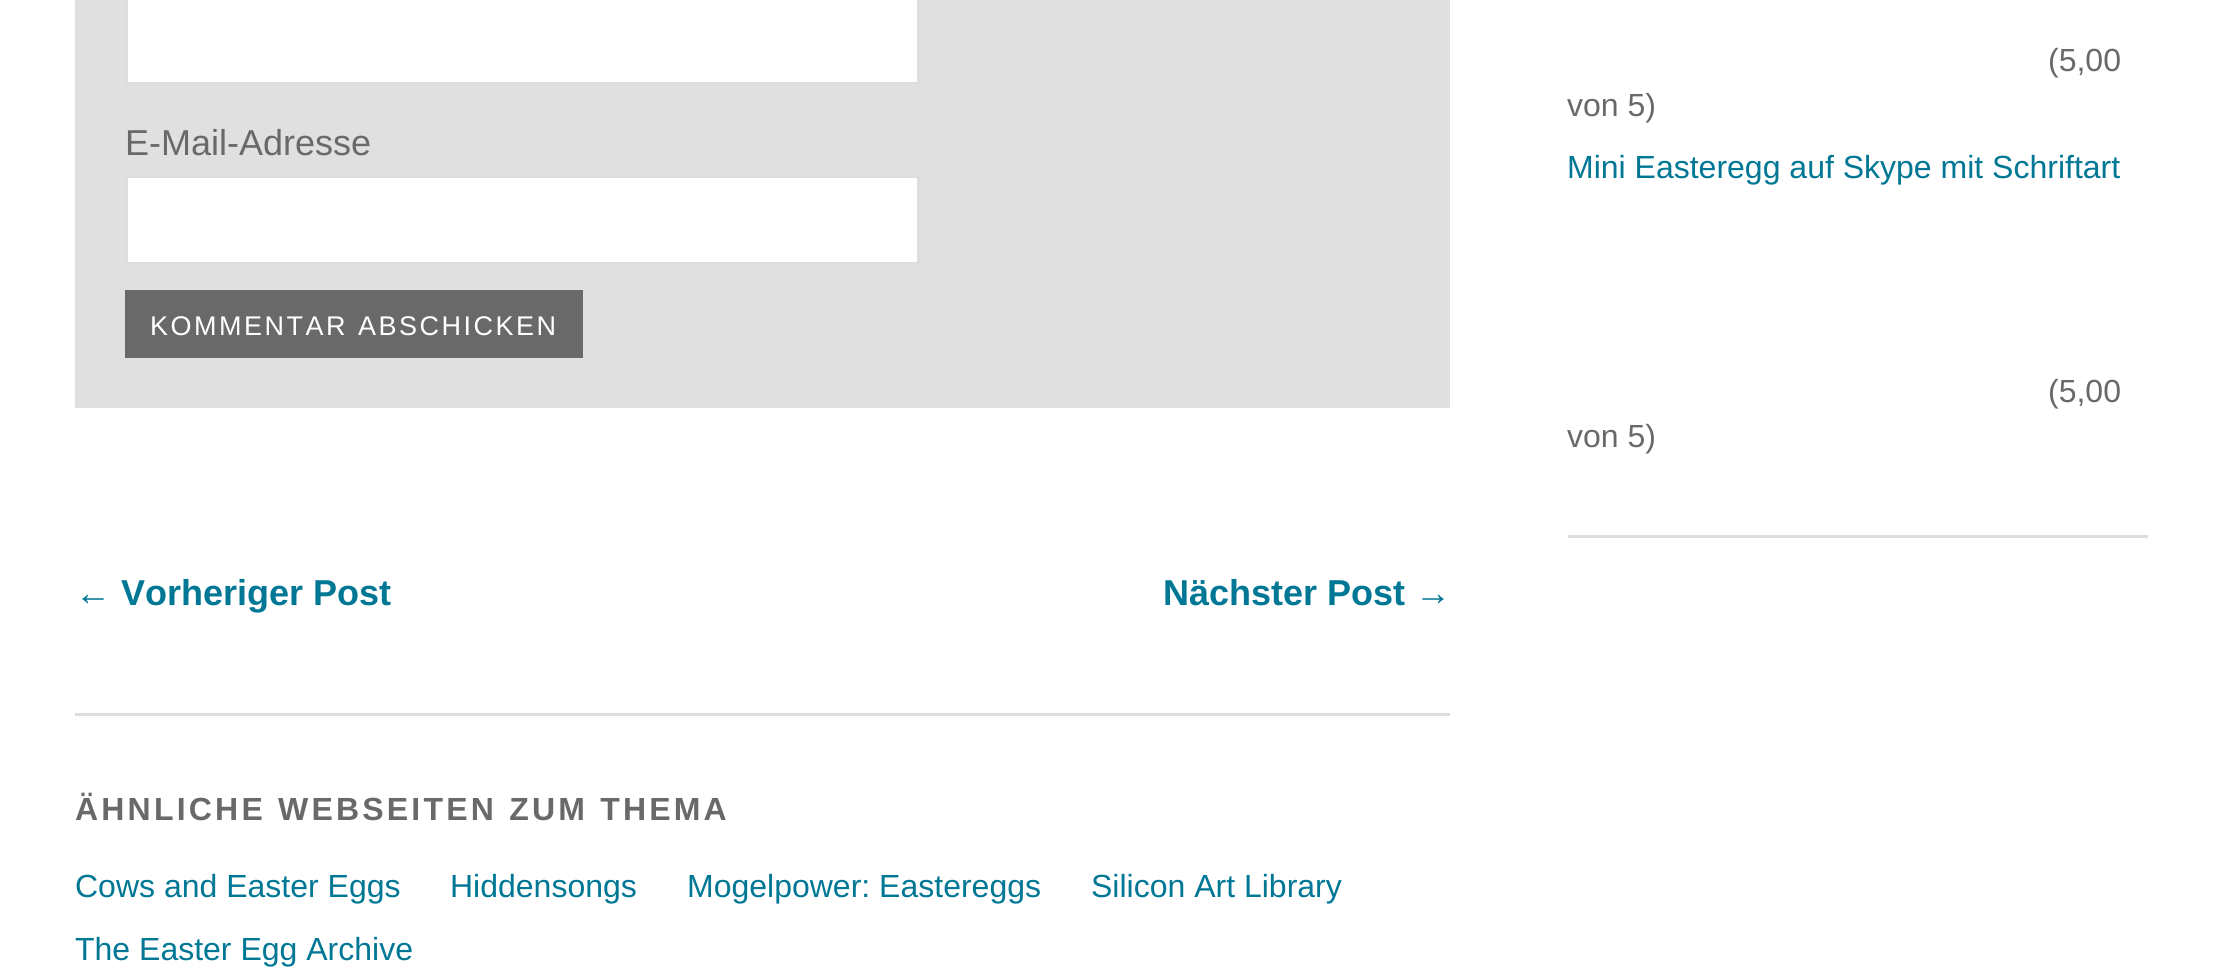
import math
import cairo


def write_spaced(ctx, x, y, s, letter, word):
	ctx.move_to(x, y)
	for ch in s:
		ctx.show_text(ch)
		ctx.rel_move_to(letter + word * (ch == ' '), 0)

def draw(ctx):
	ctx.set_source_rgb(1, 1, 1)
	ctx.paint()
	ctx.set_source_rgb(0.878, 0.878, 0.878)
	ctx.rectangle(75, 0, 1375, 408)
	ctx.fill()
	ctx.set_source_rgb(1, 1, 1)
	ctx.rectangle(126.5, -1.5, 792, 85)
	ctx.fill_preserve()
	ctx.set_source_rgb(0.867, 0.867, 0.867)
	ctx.set_line_width(3)
	ctx.stroke()
	ctx.select_font_face('Liberation Sans')
	ctx.set_font_size(36)
	ctx.set_source_rgb(0.412, 0.412, 0.412)
	ctx.move_to(125, 155)
	ctx.show_text('E-Mail-Adresse')
	ctx.set_source_rgb(1, 1, 1)
	ctx.rectangle(126.5, 176.5, 792, 87)
	ctx.fill_preserve()
	ctx.set_source_rgb(0.867, 0.867, 0.867)
	ctx.stroke()
	ctx.set_source_rgb(0.412, 0.412, 0.412)
	ctx.rectangle(125, 290, 458, 68)
	ctx.fill()
	ctx.set_font_size(27)
	ctx.set_source_rgb(1, 1, 1)
	write_spaced(ctx, 150, 335, 'KOMMENTAR ABSCHICKEN', 2.5, 0)
	ctx.select_font_face('Liberation Sans', cairo.FONT_SLANT_NORMAL, cairo.FONT_WEIGHT_BOLD)
	ctx.set_font_size(36)
	ctx.set_source_rgb(0, 0.467, 0.58)
	ctx.move_to(75, 605)
	ctx.show_text('← Vorheriger Post')
	ctx.move_to(1163, 605)
	ctx.show_text('Nächster Post →')
	ctx.set_source_rgb(0.867, 0.867, 0.867)
	ctx.rectangle(75, 713, 1375, 3)
	ctx.fill()
	ctx.set_font_size(32)
	ctx.set_source_rgb(0.412, 0.412, 0.412)
	write_spaced(ctx, 75, 820, 'ÄHNLICHE WEBSEITEN ZUM THEMA', 3.2, 0)
	ctx.select_font_face('Liberation Sans')
	ctx.set_source_rgb(0, 0.467, 0.58)
	for x, y, s in [
		(75, 897, 'Cows and Easter Eggs'),
		(450, 897, 'Hiddensongs'),
		(687, 897, 'Mogelpower: Eastereggs'),
		(1091, 897, 'Silicon Art Library'),
		(75, 960, 'The Easter Egg Archive'),
	]:
		ctx.move_to(x, y)
		ctx.show_text(s)
	ctx.set_source_rgb(0.867, 0.867, 0.867)
	ctx.rectangle(1568, 535, 580, 3)
	ctx.fill()
	ctx.set_source_rgb(0.412, 0.412, 0.412)
	ctx.move_to(2048, 71)
	ctx.show_text('(5,00')
	ctx.move_to(1567, 116)
	ctx.show_text('von 5)')
	ctx.set_source_rgb(0, 0.467, 0.58)
	ctx.move_to(1567, 178)
	ctx.show_text('Mini Easteregg auf Skype mit Schriftart')
	ctx.set_source_rgb(0.412, 0.412, 0.412)
	ctx.move_to(2048, 402)
	ctx.show_text('(5,00')
	ctx.move_to(1567, 447)
	ctx.show_text('von 5)')


surface = cairo.ImageSurface(cairo.FORMAT_RGB24, 2221, 972)
ctx = cairo.Context(surface)
options = cairo.FontOptions()
options.set_hint_metrics(cairo.HINT_METRICS_OFF)
options.set_hint_style(cairo.HINT_STYLE_NONE)
ctx.set_font_options(options)
ctx.set_miter_limit(4)
draw(ctx)
surface.write_to_png('image.png')
